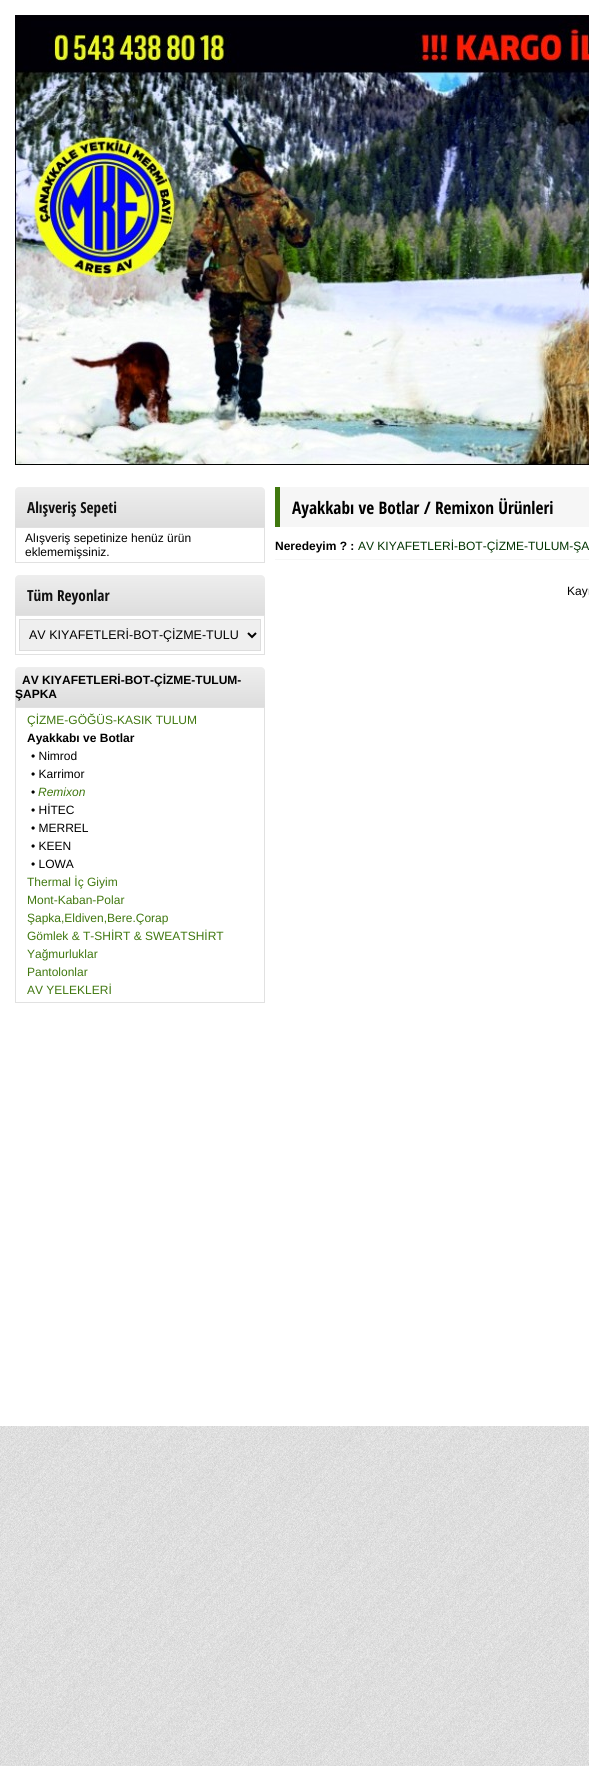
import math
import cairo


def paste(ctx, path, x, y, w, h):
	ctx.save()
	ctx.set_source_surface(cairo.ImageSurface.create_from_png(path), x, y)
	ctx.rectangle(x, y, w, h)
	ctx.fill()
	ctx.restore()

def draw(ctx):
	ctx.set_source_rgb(1, 1, 1)
	ctx.paint()
	paste(ctx, 'media/1.png', 0, 1426, 589, 340)
	paste(ctx, 'media/2.png', 15, 15, 574, 450)
	gradient = cairo.LinearGradient(140, 487, 140, 527)
	gradient.add_color_stop_rgba(0.01, 0.933, 0.933, 0.933, 1)
	gradient.add_color_stop_rgba(1, 0.867, 0.867, 0.867, 1)
	ctx.set_source(gradient)
	ctx.new_path()
	ctx.move_to(19, 487)
	ctx.line_to(261, 487)
	ctx.curve_to(263, 487, 265, 489, 265, 491)
	ctx.line_to(265, 527)
	ctx.line_to(15, 527)
	ctx.line_to(15, 491)
	ctx.curve_to(15, 489, 17, 487, 19, 487)
	ctx.close_path()
	ctx.fill()
	ctx.select_font_face('Open Sans Condensed', cairo.FONT_SLANT_NORMAL, cairo.FONT_WEIGHT_BOLD)
	ctx.set_font_size(15.25)
	ctx.set_source_rgb(0.067, 0.067, 0.067)
	ctx.move_to(27, 513)
	ctx.show_text('Alışveriş Sepeti')
	ctx.rectangle(15.5, 527.5, 249, 35)
	ctx.set_source_rgb(0.882, 0.882, 0.882)
	ctx.set_line_width(1)
	ctx.stroke()
	ctx.select_font_face('Liberation Sans')
	ctx.set_font_size(12)
	ctx.set_source_rgb(0, 0, 0)
	ctx.move_to(25, 542)
	ctx.show_text('Alışveriş sepetinize henüz ürün')
	ctx.move_to(25, 556)
	ctx.show_text('eklememişsiniz.')
	gradient = cairo.LinearGradient(140, 575, 140, 615)
	gradient.add_color_stop_rgba(0.01, 0.933, 0.933, 0.933, 1)
	gradient.add_color_stop_rgba(1, 0.867, 0.867, 0.867, 1)
	ctx.set_source(gradient)
	ctx.new_path()
	ctx.move_to(19, 575)
	ctx.line_to(261, 575)
	ctx.curve_to(263, 575, 265, 577, 265, 579)
	ctx.line_to(265, 615)
	ctx.line_to(15, 615)
	ctx.line_to(15, 579)
	ctx.curve_to(15, 577, 17, 575, 19, 575)
	ctx.close_path()
	ctx.fill()
	ctx.select_font_face('Open Sans Condensed', cairo.FONT_SLANT_NORMAL, cairo.FONT_WEIGHT_BOLD)
	ctx.set_font_size(15.25)
	ctx.set_source_rgb(0.067, 0.067, 0.067)
	ctx.move_to(27, 601)
	ctx.show_text('Tüm Reyonlar')
	ctx.rectangle(15.5, 615.5, 249, 39)
	ctx.set_source_rgb(0.882, 0.882, 0.882)
	ctx.stroke()
	ctx.set_source_rgb(0.937, 0.937, 0.937)
	ctx.rectangle(19.5, 619.5, 241, 31)
	ctx.fill_preserve()
	ctx.set_source_rgb(0.867, 0.867, 0.867)
	ctx.stroke()
	ctx.new_path()
	ctx.move_to(248, 633)
	ctx.line_to(252, 637)
	ctx.line_to(256, 633)
	ctx.set_source_rgb(0, 0, 0)
	ctx.set_line_width(2)
	ctx.stroke()
	ctx.select_font_face('Liberation Sans')
	ctx.set_font_size(12.5)
	ctx.move_to(29, 639)
	ctx.show_text('AV KIYAFETLERİ-BOT-ÇİZME-TULU')
	gradient = cairo.LinearGradient(140, 667, 140, 707)
	gradient.add_color_stop_rgba(0.01, 0.933, 0.933, 0.933, 1)
	gradient.add_color_stop_rgba(1, 0.867, 0.867, 0.867, 1)
	ctx.set_source(gradient)
	ctx.new_path()
	ctx.move_to(19, 667)
	ctx.line_to(261, 667)
	ctx.curve_to(263, 667, 265, 669, 265, 671)
	ctx.line_to(265, 707)
	ctx.line_to(15, 707)
	ctx.line_to(15, 671)
	ctx.curve_to(15, 669, 17, 667, 19, 667)
	ctx.close_path()
	ctx.fill()
	ctx.select_font_face('Liberation Sans', cairo.FONT_SLANT_NORMAL, cairo.FONT_WEIGHT_BOLD)
	ctx.set_font_size(12)
	ctx.set_source_rgb(0, 0, 0)
	ctx.move_to(22, 684)
	ctx.show_text('AV KIYAFETLERİ-BOT-ÇİZME-TULUM-')
	ctx.move_to(15, 698)
	ctx.show_text('ŞAPKA')
	ctx.rectangle(15.5, 707.5, 249, 295)
	ctx.set_source_rgb(0.882, 0.882, 0.882)
	ctx.set_line_width(1)
	ctx.stroke()
	ctx.select_font_face('Liberation Sans')
	ctx.set_source_rgb(0.251, 0.471, 0.059)
	ctx.move_to(27, 724)
	ctx.show_text('ÇİZME-GÖĞÜS-KASIK TULUM')
	ctx.select_font_face('Liberation Sans', cairo.FONT_SLANT_NORMAL, cairo.FONT_WEIGHT_BOLD)
	ctx.set_source_rgb(0, 0, 0)
	ctx.move_to(27, 742)
	ctx.show_text('Ayakkabı ve Botlar')
	ctx.select_font_face('Liberation Sans')
	for x, y, s in [
		(31, 760, '• Nimrod'),
		(31, 778, '• Karrimor'),
		(31, 796, '•'),
	]:
		ctx.move_to(x, y)
		ctx.show_text(s)
	ctx.select_font_face('Liberation Sans', cairo.FONT_SLANT_ITALIC)
	ctx.set_source_rgb(0.251, 0.471, 0.059)
	ctx.move_to(38, 796)
	ctx.show_text('Remixon')
	ctx.select_font_face('Liberation Sans')
	ctx.set_source_rgb(0, 0, 0)
	for x, y, s in [
		(31, 814, '• HİTEC'),
		(31, 832, '• MERREL'),
		(31, 850, '• KEEN'),
		(31, 868, '• LOWA'),
	]:
		ctx.move_to(x, y)
		ctx.show_text(s)
	ctx.set_source_rgb(0.251, 0.471, 0.059)
	for x, y, s in [
		(27, 886, 'Thermal İç Giyim'),
		(27, 904, 'Mont-Kaban-Polar'),
		(27, 922, 'Şapka,Eldiven,Bere.Çorap'),
		(27, 940, 'Gömlek & T-SHİRT & SWEATSHİRT'),
		(27, 958, 'Yağmurluklar'),
		(27, 976, 'Pantolonlar'),
		(27, 994, 'AV YELEKLERİ'),
	]:
		ctx.move_to(x, y)
		ctx.show_text(s)
	ctx.rectangle(275, 487, 5, 40)
	ctx.fill()
	ctx.set_source_rgb(0.961, 0.961, 0.961)
	ctx.rectangle(280, 487, 309, 40)
	ctx.fill()
	ctx.select_font_face('Open Sans Condensed', cairo.FONT_SLANT_NORMAL, cairo.FONT_WEIGHT_BOLD)
	ctx.set_font_size(17.3)
	ctx.set_source_rgb(0, 0, 0)
	ctx.move_to(292, 514)
	ctx.show_text('Ayakkabı ve Botlar / Remixon Ürünleri')
	ctx.select_font_face('Liberation Sans', cairo.FONT_SLANT_NORMAL, cairo.FONT_WEIGHT_BOLD)
	ctx.set_font_size(12)
	ctx.move_to(275, 550)
	ctx.show_text('Neredeyim ? :')
	ctx.select_font_face('Liberation Sans')
	ctx.set_source_rgb(0, 0.2, 0)
	ctx.move_to(358, 550)
	ctx.show_text('AV KIYAFETLERİ-BOT-ÇİZME-TULUM-ŞA')
	ctx.set_source_rgb(0.961, 0.961, 0.961)
	ctx.rectangle(275, 559, 314, 1)
	ctx.fill()
	ctx.set_source_rgb(0, 0, 0)
	ctx.move_to(567, 595)
	ctx.show_text('Kayı')


surface = cairo.ImageSurface(cairo.FORMAT_RGB24, 589, 1766)
ctx = cairo.Context(surface)
options = cairo.FontOptions()
options.set_hint_metrics(cairo.HINT_METRICS_OFF)
options.set_hint_style(cairo.HINT_STYLE_NONE)
ctx.set_font_options(options)
ctx.set_miter_limit(4)
draw(ctx)
surface.write_to_png('image.png')
